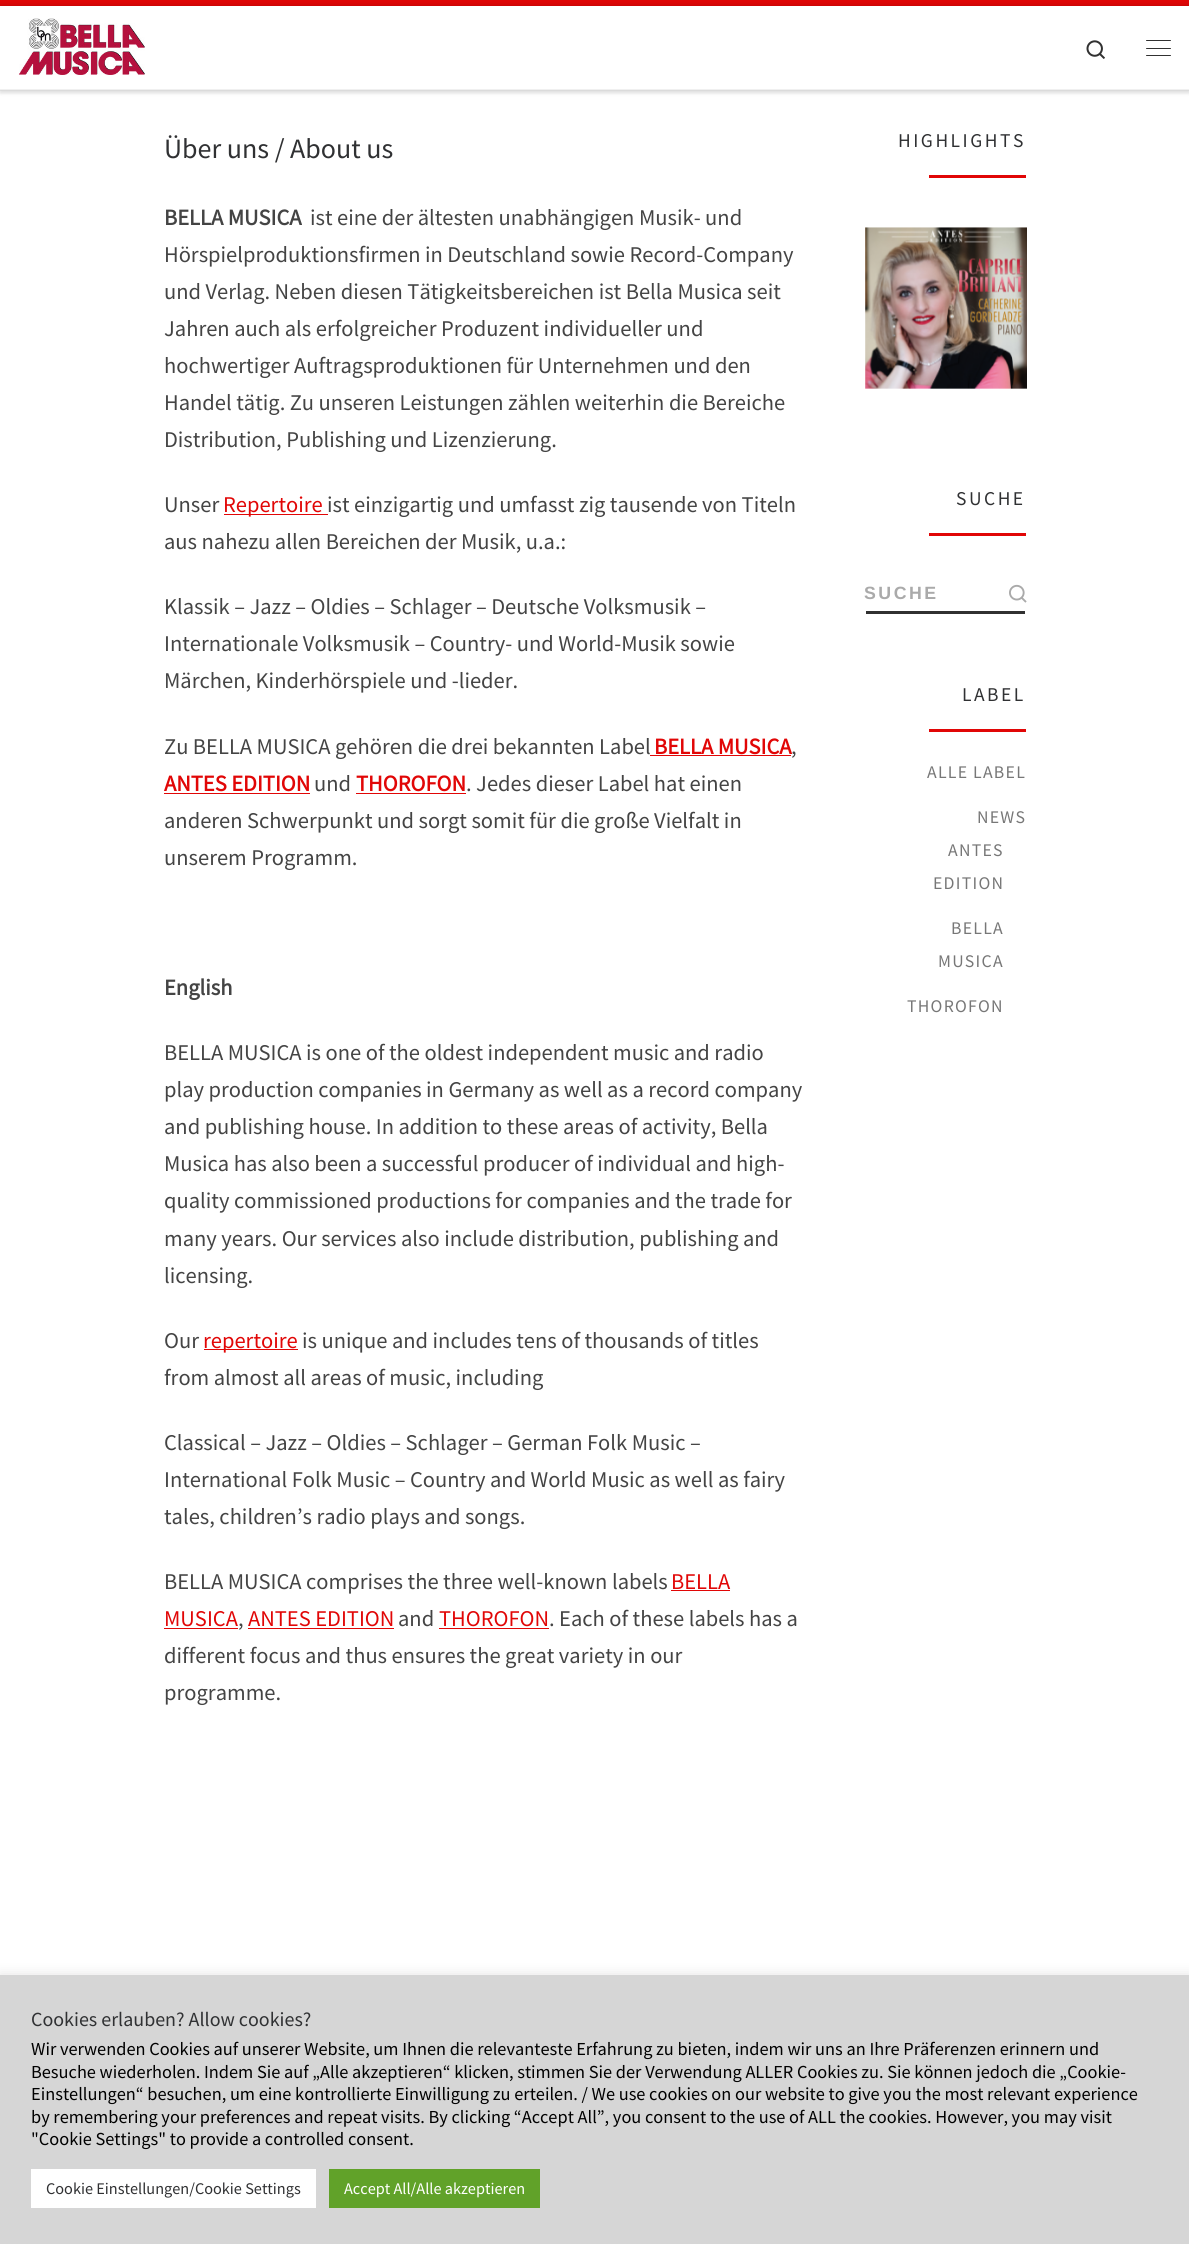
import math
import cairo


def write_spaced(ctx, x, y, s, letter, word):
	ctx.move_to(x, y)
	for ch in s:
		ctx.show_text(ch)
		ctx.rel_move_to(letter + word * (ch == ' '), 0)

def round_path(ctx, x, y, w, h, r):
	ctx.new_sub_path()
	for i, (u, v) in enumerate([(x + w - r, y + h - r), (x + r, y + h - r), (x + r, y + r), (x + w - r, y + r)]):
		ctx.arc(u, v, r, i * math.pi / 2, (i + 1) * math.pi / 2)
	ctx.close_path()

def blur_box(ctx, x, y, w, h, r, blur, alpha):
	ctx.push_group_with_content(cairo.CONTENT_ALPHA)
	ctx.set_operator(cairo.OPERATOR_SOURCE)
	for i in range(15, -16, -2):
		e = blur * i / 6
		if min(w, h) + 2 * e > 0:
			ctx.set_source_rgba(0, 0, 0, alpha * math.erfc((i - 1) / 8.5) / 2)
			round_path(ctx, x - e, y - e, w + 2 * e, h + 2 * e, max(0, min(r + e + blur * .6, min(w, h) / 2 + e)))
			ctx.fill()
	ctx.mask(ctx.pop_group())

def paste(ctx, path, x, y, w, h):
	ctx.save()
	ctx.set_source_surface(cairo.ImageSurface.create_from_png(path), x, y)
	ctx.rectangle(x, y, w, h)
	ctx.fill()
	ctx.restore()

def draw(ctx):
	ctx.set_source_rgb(1, 1, 1)
	ctx.paint()
	ctx.set_source_rgb(0.4, 0.4, 0.4)
	blur_box(ctx, 0, 3, 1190, 91, 0, 1, 0.08)
	ctx.set_source_rgb(0.882, 0.027, 0.027)
	ctx.rectangle(0, 0, 1189, 6)
	ctx.fill()
	ctx.set_source_rgb(0.937, 0.937, 0.937)
	ctx.rectangle(0, 90, 1189, 1)
	ctx.fill()
	ctx.set_source_rgb(0, 0, 0)
	blur_box(ctx, 0, 6, 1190, 84, 0, 3, 0.2)
	ctx.set_source_rgb(1, 1, 1)
	ctx.rectangle(0, 6, 1189, 83)
	ctx.fill()
	paste(ctx, 'media/1.png', 18, 18, 127, 57)
	paste(ctx, 'media/2.png', 1086, 40, 19, 19)
	ctx.set_source_rgb(0.192, 0.192, 0.192)
	round_path(ctx, 1146, 40, 25, 1, 0.5)
	ctx.fill()
	round_path(ctx, 1146, 48, 25, 1, 0.5)
	ctx.fill()
	round_path(ctx, 1146, 55, 25, 1, 0.5)
	ctx.fill()
	ctx.set_source_rgb(0.941, 0.941, 0.941)
	ctx.rectangle(0, 89, 1189, 1)
	ctx.fill()
	ctx.select_font_face('Source Sans Pro')
	ctx.set_font_size(28)
	ctx.set_source_rgb(0.188, 0.192, 0.2)
	ctx.move_to(164, 158)
	ctx.show_text('Über uns / About us')
	ctx.select_font_face('Source Sans Pro', cairo.FONT_SLANT_NORMAL, cairo.FONT_WEIGHT_BOLD)
	ctx.set_font_size(22.5)
	ctx.set_source_rgb(0.267, 0.267, 0.267)
	ctx.move_to(164, 225)
	ctx.show_text('BELLA MUSICA')
	ctx.select_font_face('Source Sans Pro')
	for x, y, s in [
		(310, 225, 'ist eine der ältesten unabhängigen Musik- und'),
		(164, 262, 'Hörspielproduktionsfirmen in Deutschland sowie Record-Company'),
		(164, 299, 'und Verlag. Neben diesen Tätigkeitsbereichen ist Bella Musica seit'),
		(164, 336, 'Jahren auch als erfolgreicher Produzent individueller und'),
		(164, 373, 'hochwertiger Auftragsproduktionen für Unternehmen und den'),
		(164, 410, 'Handel tätig. Zu unseren Leistungen zählen weiterhin die Bereiche'),
		(164, 447, 'Distribution, Publishing und Lizenzierung.'),
		(164, 512, 'Unser'),
	]:
		ctx.move_to(x, y)
		ctx.show_text(s)
	ctx.set_source_rgb(0.882, 0.027, 0.027)
	ctx.rectangle(224, 514, 104, 1)
	ctx.fill()
	ctx.move_to(223, 512)
	ctx.show_text('Repertoire')
	ctx.set_source_rgb(0.267, 0.267, 0.267)
	for x, y, s in [
		(327, 512, 'ist einzigartig und umfasst zig tausende von Titeln'),
		(164, 549, 'aus nahezu allen Bereichen der Musik, u.a.:'),
		(164, 614, 'Klassik – Jazz – Oldies – Schlager – Deutsche Volksmusik –'),
		(164, 651, 'Internationale Volksmusik – Country- und World-Musik sowie'),
		(164, 688, 'Märchen, Kinderhörspiele und -lieder.'),
		(164, 754, 'Zu BELLA MUSICA gehören die drei bekannten Label'),
	]:
		ctx.move_to(x, y)
		ctx.show_text(s)
	ctx.select_font_face('Source Sans Pro', cairo.FONT_SLANT_NORMAL, cairo.FONT_WEIGHT_BOLD)
	ctx.set_source_rgb(0.882, 0.027, 0.027)
	ctx.move_to(654, 754)
	ctx.show_text('BELLA MUSICA')
	ctx.rectangle(650, 755, 141, 1)
	ctx.fill()
	ctx.select_font_face('Source Sans Pro')
	ctx.set_source_rgb(0.267, 0.267, 0.267)
	ctx.move_to(791, 754)
	ctx.show_text(',')
	ctx.select_font_face('Source Sans Pro', cairo.FONT_SLANT_NORMAL, cairo.FONT_WEIGHT_BOLD)
	ctx.set_source_rgb(0.882, 0.027, 0.027)
	ctx.move_to(164, 791)
	ctx.show_text('ANTES EDITION')
	ctx.rectangle(164, 793, 146, 1)
	ctx.fill()
	ctx.select_font_face('Source Sans Pro')
	ctx.set_source_rgb(0.267, 0.267, 0.267)
	ctx.move_to(314, 791)
	ctx.show_text('und')
	ctx.select_font_face('Source Sans Pro', cairo.FONT_SLANT_NORMAL, cairo.FONT_WEIGHT_BOLD)
	ctx.set_source_rgb(0.882, 0.027, 0.027)
	ctx.move_to(356, 791)
	ctx.show_text('THOROFON')
	ctx.rectangle(356, 793, 110, 1)
	ctx.fill()
	ctx.select_font_face('Source Sans Pro')
	ctx.set_source_rgb(0.267, 0.267, 0.267)
	for x, y, s in [
		(466, 791, '. Jedes dieser Label hat einen'),
		(164, 828, 'anderen Schwerpunkt und sorgt somit für die große Vielfalt in'),
		(164, 865, 'unserem Programm.'),
	]:
		ctx.move_to(x, y)
		ctx.show_text(s)
	ctx.select_font_face('Source Sans Pro', cairo.FONT_SLANT_NORMAL, cairo.FONT_WEIGHT_BOLD)
	ctx.move_to(164, 995)
	ctx.show_text('English')
	ctx.select_font_face('Source Sans Pro')
	for x, y, s in [
		(164, 1060, 'BELLA MUSICA is one of the oldest independent music and radio'),
		(164, 1097, 'play production companies in Germany as well as a record company'),
		(164, 1134, 'and publishing house. In addition to these areas of activity, Bella'),
		(164, 1171, 'Musica has also been a successful producer of individual and high-'),
		(164, 1208, 'quality commissioned productions for companies and the trade for'),
		(164, 1246, 'many years. Our services also include distribution, publishing and'),
		(164, 1283, 'licensing.'),
		(164, 1348, 'Our'),
	]:
		ctx.move_to(x, y)
		ctx.show_text(s)
	ctx.set_source_rgb(0.882, 0.027, 0.027)
	ctx.rectangle(204, 1349, 94, 1)
	ctx.fill()
	ctx.move_to(203, 1348)
	ctx.show_text('repertoire')
	ctx.set_source_rgb(0.267, 0.267, 0.267)
	for x, y, s in [
		(302, 1348, 'is unique and includes tens of thousands of titles'),
		(164, 1385, 'from almost all areas of music, including'),
		(164, 1450, 'Classical – Jazz – Oldies – Schlager – German Folk Music –'),
		(164, 1487, 'International Folk Music – Country and World Music as well as fairy'),
		(164, 1524, 'tales, children’s radio plays and songs.'),
		(164, 1589, 'BELLA MUSICA comprises the three well-known labels'),
	]:
		ctx.move_to(x, y)
		ctx.show_text(s)
	ctx.set_source_rgb(0.882, 0.027, 0.027)
	ctx.move_to(671, 1589)
	ctx.show_text('BELLA')
	ctx.rectangle(671, 1590, 59, 1)
	ctx.fill()
	ctx.move_to(164, 1626)
	ctx.show_text('MUSICA')
	ctx.rectangle(164, 1628, 74, 1)
	ctx.fill()
	ctx.set_source_rgb(0.267, 0.267, 0.267)
	ctx.move_to(238, 1626)
	ctx.show_text(',')
	ctx.set_source_rgb(0.882, 0.027, 0.027)
	ctx.move_to(248, 1626)
	ctx.show_text('ANTES EDITION')
	ctx.rectangle(248, 1628, 146, 1)
	ctx.fill()
	ctx.set_source_rgb(0.267, 0.267, 0.267)
	ctx.move_to(398, 1626)
	ctx.show_text('and')
	ctx.set_source_rgb(0.882, 0.027, 0.027)
	ctx.move_to(439, 1626)
	ctx.show_text('THOROFON')
	ctx.rectangle(439, 1628, 110, 1)
	ctx.fill()
	ctx.set_source_rgb(0.267, 0.267, 0.267)
	for x, y, s in [
		(549, 1626, '. Each of these labels has a'),
		(164, 1663, 'different focus and thus ensures the great variety in our'),
		(164, 1700, 'programme.'),
	]:
		ctx.move_to(x, y)
		ctx.show_text(s)
	ctx.set_font_size(19.5)
	ctx.set_source_rgb(0.188, 0.192, 0.2)
	write_spaced(ctx, 898, 147, 'HIGHLIGHTS', 2.5, 0)
	ctx.set_source_rgb(0.882, 0.027, 0.027)
	ctx.rectangle(929, 175, 97, 3)
	ctx.fill()
	paste(ctx, 'media/3.png', 865, 227, 162, 162)
	ctx.set_source_rgb(0.188, 0.192, 0.2)
	write_spaced(ctx, 956, 505, 'SUCHE', 2.5, 0)
	ctx.set_source_rgb(0.882, 0.027, 0.027)
	ctx.rectangle(929, 533, 97, 3)
	ctx.fill()
	ctx.select_font_face('Liberation Sans', cairo.FONT_SLANT_NORMAL, cairo.FONT_WEIGHT_BOLD)
	ctx.set_font_size(17.75)
	ctx.set_source_rgb(0.667, 0.667, 0.667)
	write_spaced(ctx, 864, 599, 'SUCHE', 2.5, 0)
	paste(ctx, 'media/4.png', 1009, 584, 18, 19)
	ctx.set_source_rgb(0.192, 0.192, 0.192)
	ctx.rectangle(866, 611, 159, 3)
	ctx.fill()
	ctx.select_font_face('Source Sans Pro')
	ctx.set_font_size(19.5)
	ctx.set_source_rgb(0.188, 0.192, 0.2)
	write_spaced(ctx, 962, 701, 'LABEL', 2.5, 0)
	ctx.set_source_rgb(0.882, 0.027, 0.027)
	ctx.rectangle(929, 729, 97, 3)
	ctx.fill()
	ctx.set_font_size(17.75)
	ctx.set_source_rgb(0.467, 0.467, 0.467)
	for x, y, s in [
		(927, 778, 'ALLE LABEL'),
		(977, 823, 'NEWS'),
		(948, 856, 'ANTES'),
		(933, 889, 'EDITION'),
		(951, 934, 'BELLA'),
		(938, 967, 'MUSICA'),
		(907, 1012, 'THOROFON'),
	]:
		write_spaced(ctx, x, y, s, 1.25, 0)
	ctx.set_source_rgb(0.675, 0.671, 0.671)
	blur_box(ctx, 0, 1974, 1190, 270, 0, 6, 0.3)
	ctx.set_source_rgb(0.839, 0.839, 0.839)
	ctx.rectangle(0, 1975, 1189, 269)
	ctx.fill()
	ctx.set_font_size(20)
	ctx.set_source_rgb(0.188, 0.192, 0.2)
	ctx.move_to(31, 2026)
	ctx.show_text('Cookies erlauben? Allow cookies?')
	ctx.set_font_size(18.33)
	ctx.set_source_rgb(0, 0, 0)
	for x, y, s in [
		(31, 2055, 'Wir verwenden Cookies auf unserer Website, um Ihnen die relevanteste Erfahrung zu bieten, indem wir uns an Ihre Präferenzen erinnern und'),
		(31, 2078, 'Besuche wiederholen. Indem Sie auf „Alle akzeptieren“ klicken, stimmen Sie der Verwendung ALLER Cookies zu. Sie können jedoch die „Cookie-'),
		(31, 2100, 'Einstellungen“ besuchen, um eine kontrollierte Einwilligung zu erteilen. / We use cookies on our website to give you the most relevant experience'),
		(31, 2123, 'by remembering your preferences and repeat visits. By clicking “Accept All”, you consent to the use of ALL the cookies. However, you may visit'),
		(31, 2145, '"Cookie Settings" to provide a controlled consent.'),
	]:
		ctx.move_to(x, y)
		ctx.show_text(s)
	ctx.set_source_rgb(1, 1, 1)
	ctx.rectangle(31, 2169, 285, 39)
	ctx.fill()
	ctx.set_font_size(16.25)
	ctx.set_source_rgb(0.188, 0.192, 0.2)
	ctx.move_to(46, 2194)
	ctx.show_text('Cookie Einstellungen/Cookie Settings')
	ctx.set_source_rgb(0.38, 0.635, 0.161)
	ctx.rectangle(329, 2169, 211, 39)
	ctx.fill()
	ctx.set_source_rgb(1, 1, 1)
	ctx.move_to(344, 2194)
	ctx.show_text('Accept All/Alle akzeptieren')


surface = cairo.ImageSurface(cairo.FORMAT_RGB24, 1189, 2244)
ctx = cairo.Context(surface)
options = cairo.FontOptions()
options.set_hint_metrics(cairo.HINT_METRICS_OFF)
options.set_hint_style(cairo.HINT_STYLE_NONE)
ctx.set_font_options(options)
ctx.set_miter_limit(4)
draw(ctx)
surface.write_to_png('image.png')
